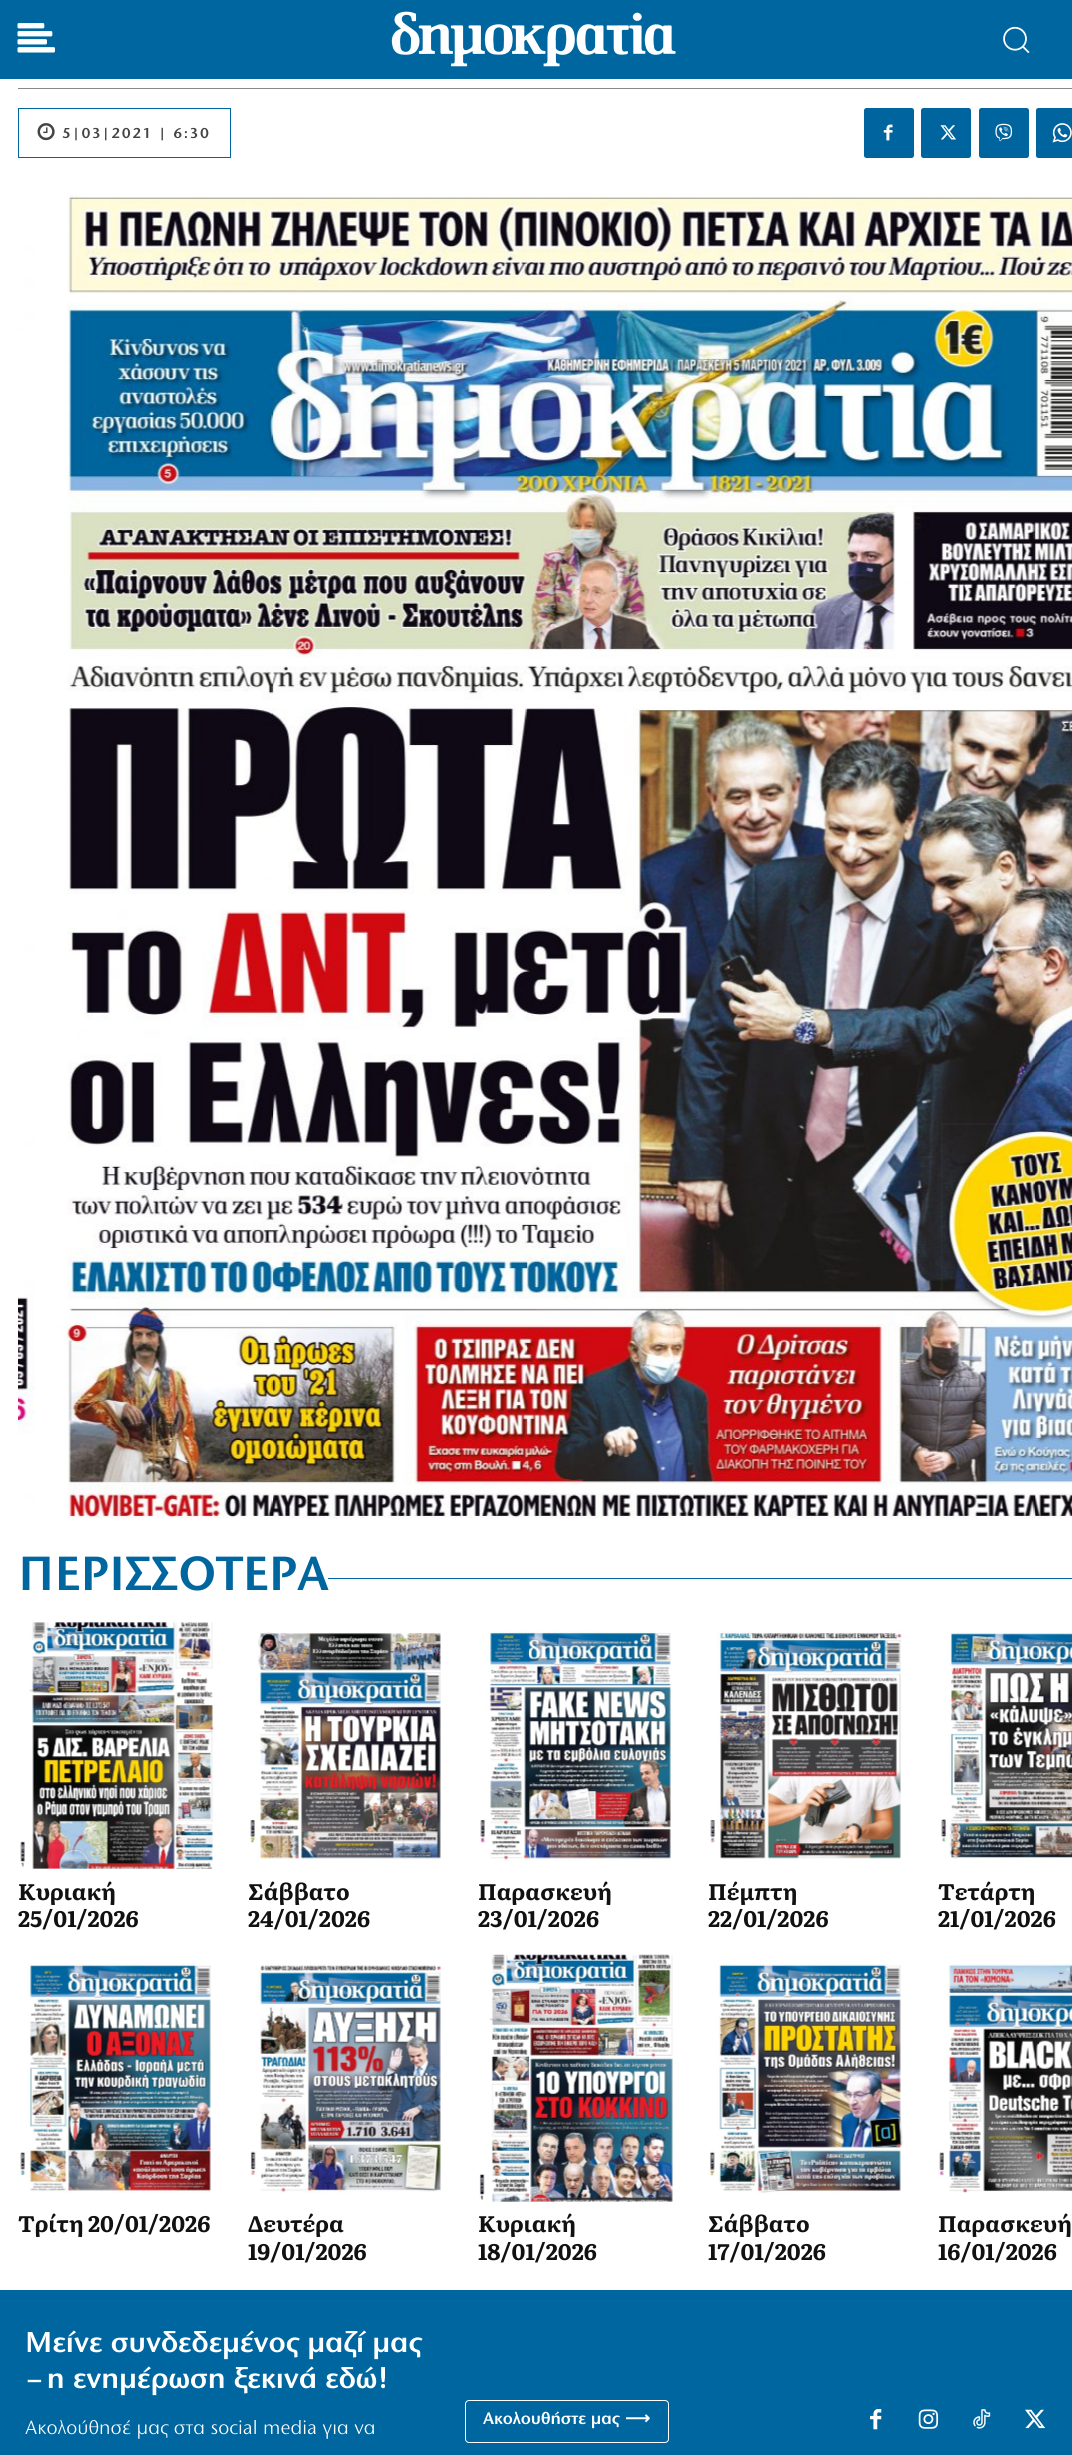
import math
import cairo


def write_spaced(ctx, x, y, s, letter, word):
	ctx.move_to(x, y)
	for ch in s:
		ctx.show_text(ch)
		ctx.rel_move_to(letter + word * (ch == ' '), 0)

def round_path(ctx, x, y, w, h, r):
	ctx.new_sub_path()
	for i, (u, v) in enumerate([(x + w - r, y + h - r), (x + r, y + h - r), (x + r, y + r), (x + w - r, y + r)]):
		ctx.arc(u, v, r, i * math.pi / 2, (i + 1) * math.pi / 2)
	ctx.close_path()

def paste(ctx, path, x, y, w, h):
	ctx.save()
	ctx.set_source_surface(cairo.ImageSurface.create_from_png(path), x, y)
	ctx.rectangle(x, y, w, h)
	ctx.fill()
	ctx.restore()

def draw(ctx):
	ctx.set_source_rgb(1, 1, 1)
	ctx.paint()
	ctx.set_source_rgb(0, 0.4, 0.624)
	ctx.rectangle(0, 0, 1072, 79)
	ctx.fill()
	paste(ctx, 'media/1.png', 17, 23, 38, 30)
	paste(ctx, 'media/2.png', 391, 11, 285, 56)
	paste(ctx, 'media/3.png', 1003, 26, 27, 27)
	ctx.set_source_rgb(0.533, 0.533, 0.533)
	ctx.rectangle(18, 88, 1054, 1)
	ctx.fill()
	ctx.rectangle(18.5, 108.5, 212, 49)
	ctx.set_source_rgb(0, 0.4, 0.624)
	ctx.set_line_width(1)
	ctx.stroke()
	paste(ctx, 'media/4.png', 37, 123, 18, 18)
	ctx.select_font_face('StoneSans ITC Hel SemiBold')
	ctx.set_font_size(15)
	ctx.set_source_rgb(0.267, 0.267, 0.267)
	write_spaced(ctx, 62, 138, '5|03|2021 | 6:30', 1.5, 0)
	ctx.set_source_rgb(0, 0.392, 0.62)
	round_path(ctx, 864, 108, 50, 50, 2.5)
	ctx.fill()
	paste(ctx, 'media/5.png', 883, 124, 10, 17)
	round_path(ctx, 921, 108, 50, 50, 2.5)
	ctx.fill()
	paste(ctx, 'media/6.png', 940, 125, 16, 15)
	round_path(ctx, 979, 108, 50, 50, 2.5)
	ctx.fill()
	paste(ctx, 'media/7.png', 995, 123, 17, 19)
	ctx.new_path()
	ctx.move_to(1038.5, 108)
	ctx.line_to(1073, 108)
	ctx.line_to(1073, 158)
	ctx.line_to(1038.5, 158)
	ctx.curve_to(1037, 158, 1036, 157, 1036, 155.5)
	ctx.line_to(1036, 110.5)
	ctx.curve_to(1036, 109, 1037, 108, 1038.5, 108)
	ctx.close_path()
	ctx.fill()
	paste(ctx, 'media/8.png', 1052, 123, 20, 20)
	paste(ctx, 'media/9.png', 18, 194, 1054, 1325)
	ctx.set_font_size(50)
	ctx.set_source_rgb(0, 0.4, 0.624)
	ctx.move_to(18, 1590)
	ctx.show_text('ΠΕΡΙΣΣΟΤΕΡΑ')
	ctx.set_source_rgb(0, 0.392, 0.62)
	ctx.rectangle(328, 1578, 744, 1)
	ctx.fill()
	paste(ctx, 'media/10.png', 19, 1622, 196, 247)
	ctx.select_font_face('Literata', cairo.FONT_SLANT_NORMAL, cairo.FONT_WEIGHT_BOLD)
	ctx.set_font_size(22.5)
	ctx.set_source_rgb(0.067, 0.067, 0.067)
	ctx.move_to(18, 1900)
	ctx.show_text('Κυριακή')
	ctx.move_to(18, 1927)
	ctx.show_text('25/01/2026')
	paste(ctx, 'media/11.png', 249, 1632, 192, 228)
	ctx.move_to(248, 1900)
	ctx.show_text('Σάββατο')
	ctx.move_to(248, 1927)
	ctx.show_text('24/01/2026')
	paste(ctx, 'media/12.png', 480, 1631, 191, 230)
	ctx.move_to(478, 1900)
	ctx.show_text('Παρασκευή')
	ctx.move_to(478, 1927)
	ctx.show_text('23/01/2026')
	paste(ctx, 'media/13.png', 710, 1630, 192, 230)
	ctx.move_to(708, 1900)
	ctx.show_text('Πέμπτη')
	ctx.move_to(708, 1927)
	ctx.show_text('22/01/2026')
	paste(ctx, 'media/14.png', 941, 1632, 131, 227)
	ctx.move_to(938, 1900)
	ctx.show_text('Τετάρτη')
	ctx.move_to(938, 1927)
	ctx.show_text('21/01/2026')
	paste(ctx, 'media/15.png', 18, 1963, 194, 231)
	ctx.move_to(18, 2232)
	ctx.show_text('Τρίτη 20/01/2026')
	paste(ctx, 'media/16.png', 250, 1965, 191, 229)
	ctx.move_to(248, 2232)
	ctx.show_text('Δευτέρα')
	ctx.move_to(248, 2260)
	ctx.show_text('19/01/2026')
	paste(ctx, 'media/17.png', 479, 1954, 195, 248)
	ctx.move_to(478, 2232)
	ctx.show_text('Κυριακή')
	ctx.move_to(478, 2260)
	ctx.show_text('18/01/2026')
	paste(ctx, 'media/18.png', 708, 1964, 195, 230)
	ctx.move_to(708, 2232)
	ctx.show_text('Σάββατο')
	ctx.move_to(708, 2260)
	ctx.show_text('17/01/2026')
	paste(ctx, 'media/19.png', 938, 1964, 134, 229)
	ctx.move_to(938, 2232)
	ctx.show_text('Παρασκευή')
	ctx.move_to(938, 2260)
	ctx.show_text('16/01/2026')
	ctx.set_source_rgb(0, 0.4, 0.624)
	ctx.rectangle(0, 2290, 1072, 165)
	ctx.fill()
	ctx.select_font_face('StoneSans ITC Hel SemiBold')
	ctx.set_font_size(30)
	ctx.set_source_rgb(1, 1, 1)
	ctx.move_to(25, 2352)
	ctx.show_text('Μείνε συνδεδεμένος μαζί μας')
	ctx.move_to(25, 2388)
	ctx.show_text('– η ενημέρωση ξεκινά εδώ!')
	ctx.select_font_face('StoneSans ITC Hel')
	ctx.set_font_size(20)
	ctx.move_to(25, 2434)
	ctx.show_text('Ακολούθησέ μας στα social media για να')
	round_path(ctx, 465.5, 2400.5, 203, 42, 3.5)
	ctx.stroke()
	ctx.select_font_face('StoneSans ITC Hel SemiBold')
	ctx.set_font_size(17.5)
	ctx.move_to(483, 2424)
	ctx.show_text('Ακολουθήστε μας')
	ctx.select_font_face('DejaVu Sans', cairo.FONT_SLANT_NORMAL, cairo.FONT_WEIGHT_BOLD)
	ctx.move_to(625, 2424)
	ctx.show_text('⟶')
	paste(ctx, 'media/20.png', 870, 2409, 12, 21)
	paste(ctx, 'media/21.png', 918, 2409, 21, 20)
	paste(ctx, 'media/22.png', 973, 2409, 18, 20)
	paste(ctx, 'media/23.png', 1025, 2409, 20, 20)


surface = cairo.ImageSurface(cairo.FORMAT_RGB24, 1072, 2455)
ctx = cairo.Context(surface)
options = cairo.FontOptions()
options.set_hint_metrics(cairo.HINT_METRICS_OFF)
options.set_hint_style(cairo.HINT_STYLE_NONE)
ctx.set_font_options(options)
ctx.set_miter_limit(4)
draw(ctx)
surface.write_to_png('image.png')
